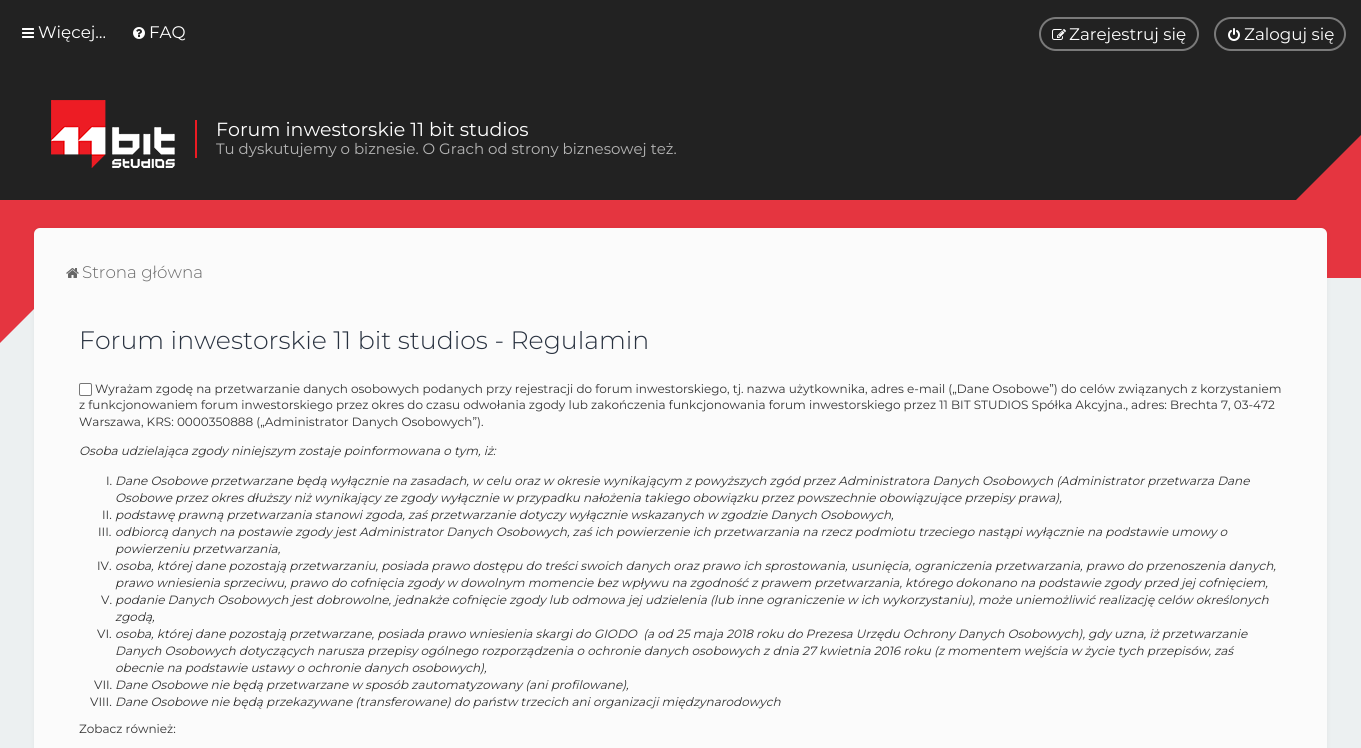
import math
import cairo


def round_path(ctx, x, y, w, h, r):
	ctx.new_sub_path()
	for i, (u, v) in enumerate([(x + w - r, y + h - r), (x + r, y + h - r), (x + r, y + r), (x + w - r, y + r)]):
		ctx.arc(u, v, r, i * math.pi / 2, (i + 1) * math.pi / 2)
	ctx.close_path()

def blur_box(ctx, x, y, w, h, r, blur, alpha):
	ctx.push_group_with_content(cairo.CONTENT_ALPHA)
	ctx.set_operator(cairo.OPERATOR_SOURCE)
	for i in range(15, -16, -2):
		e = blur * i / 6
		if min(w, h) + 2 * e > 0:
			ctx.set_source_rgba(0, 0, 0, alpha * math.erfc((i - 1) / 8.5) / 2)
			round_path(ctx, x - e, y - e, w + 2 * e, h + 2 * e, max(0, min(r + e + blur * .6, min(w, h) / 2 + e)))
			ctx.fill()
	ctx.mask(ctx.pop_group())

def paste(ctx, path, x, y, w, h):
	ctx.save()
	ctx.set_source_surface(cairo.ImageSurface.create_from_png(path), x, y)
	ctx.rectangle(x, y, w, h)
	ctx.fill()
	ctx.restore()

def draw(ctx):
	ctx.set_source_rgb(0.925, 0.941, 0.945)
	ctx.paint()
	ctx.set_source_rgb(0.133, 0.133, 0.133)
	ctx.rectangle(0, 0, 1361, 200)
	ctx.fill()
	paste(ctx, 'media/1.png', 22, 28, 12, 10)
	ctx.select_font_face('Montserrat')
	ctx.set_font_size(16.75)
	ctx.set_source_rgb(1, 1, 1)
	ctx.move_to(38, 38)
	ctx.show_text('Więcej…')
	paste(ctx, 'media/2.png', 133, 27, 12, 12)
	ctx.move_to(149, 38)
	ctx.show_text('FAQ')
	round_path(ctx, 1040, 18, 158, 32, 16)
	ctx.set_source_rgb(0.478, 0.478, 0.478)
	ctx.stroke()
	paste(ctx, 'media/3.png', 1052, 29, 14, 11)
	ctx.set_source_rgb(1, 1, 1)
	ctx.move_to(1069, 40)
	ctx.show_text('Zarejestruj się')
	round_path(ctx, 1215, 18, 130, 32, 16)
	ctx.set_source_rgb(0.478, 0.478, 0.478)
	ctx.stroke()
	paste(ctx, 'media/4.png', 1228, 28, 12, 13)
	ctx.set_source_rgb(1, 1, 1)
	ctx.move_to(1244, 40)
	ctx.show_text('Zaloguj się')
	paste(ctx, 'media/5.png', 51, 100, 124, 68)
	ctx.set_source_rgb(0.925, 0.106, 0.137)
	ctx.rectangle(195, 120, 2, 38)
	ctx.fill()
	ctx.set_font_size(19)
	ctx.set_source_rgb(1, 1, 1)
	ctx.move_to(216, 136)
	ctx.show_text('Forum inwestorskie 11 bit studios')
	ctx.set_font_size(15)
	ctx.set_source_rgb(0.71, 0.71, 0.71)
	ctx.move_to(216, 154)
	ctx.show_text('Tu dyskutujemy o biznesie. O Grach od strony biznesowej też.')
	ctx.set_source_rgb(0.898, 0.208, 0.251)
	ctx.rectangle(0, 200, 1361, 78)
	ctx.fill()
	ctx.new_path()
	ctx.move_to(1361, 135)
	ctx.line_to(1361, 265)
	ctx.line_to(1296, 200)
	ctx.close_path()
	ctx.fill()
	ctx.new_path()
	ctx.move_to(0, 278)
	ctx.line_to(65, 278)
	ctx.line_to(0, 343)
	ctx.close_path()
	ctx.fill()
	ctx.set_source_rgb(0, 0, 0)
	blur_box(ctx, 34, 228, 1293, 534, 6, 2.5, 0.05)
	ctx.set_source_rgb(0.984, 0.984, 0.984)
	round_path(ctx, 34, 228, 1293, 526, 6)
	ctx.fill()
	paste(ctx, 'media/6.png', 66, 268, 13, 10)
	ctx.select_font_face('Montserrat Light')
	ctx.set_font_size(16.75)
	ctx.set_source_rgb(0.404, 0.404, 0.404)
	ctx.move_to(82, 278)
	ctx.show_text('Strona główna')
	ctx.save()
	ctx.rectangle(79, 331, 1203, 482)
	ctx.clip()
	ctx.set_font_size(25.2)
	ctx.set_source_rgb(0.157, 0.192, 0.247)
	ctx.move_to(79, 349)
	ctx.show_text('Forum inwestorskie 11 bit studios - Regulamin')
	ctx.restore()
	ctx.set_source_rgb(1, 1, 1)
	round_path(ctx, 79.5, 383.5, 12, 12, 1.5)
	ctx.fill_preserve()
	ctx.set_source_rgb(0.463, 0.463, 0.463)
	ctx.set_line_width(1)
	ctx.stroke()
	ctx.select_font_face('Montserrat')
	ctx.set_font_size(12)
	ctx.set_source_rgb(0.2, 0.2, 0.2)
	for x, y, s in [
		(95, 393, 'Wyrażam zgodę na przetwarzanie danych osobowych podanych przy rejestracji do forum inwestorskiego, tj. nazwa użytkownika, adres e-mail („Dane Osobowe”) do celów związanych z korzystaniem'),
		(79, 409, 'z funkcjonowaniem forum inwestorskiego przez okres do czasu odwołania zgody lub zakończenia funkcjonowania forum inwestorskiego przez 11 BIT STUDIOS Spółka Akcyjna., adres: Brechta 7, 03-472'),
		(79, 426, 'Warszawa, KRS: 0000350888 („Administrator Danych Osobowych”).'),
	]:
		ctx.move_to(x, y)
		ctx.show_text(s)
	ctx.select_font_face('Montserrat', cairo.FONT_SLANT_ITALIC)
	ctx.move_to(79, 455)
	ctx.show_text('Osoba udzielająca zgody niniejszym zostaje poinformowana o tym, iż:')
	ctx.select_font_face('Montserrat')
	ctx.move_to(106, 485)
	ctx.show_text('I.')
	ctx.select_font_face('Montserrat', cairo.FONT_SLANT_ITALIC)
	ctx.move_to(115, 485)
	ctx.show_text('Dane Osobowe przetwarzane będą wyłącznie na zasadach, w celu oraz w okresie wynikającym z powyższych zgód przez Administratora Danych Osobowych (Administrator przetwarza Dane')
	ctx.move_to(115, 502)
	ctx.show_text('Osobowe przez okres dłuższy niż wynikający ze zgody wyłącznie w przypadku nałożenia takiego obowiązku przez powszechnie obowiązujące przepisy prawa),')
	ctx.select_font_face('Montserrat')
	ctx.move_to(102, 519)
	ctx.show_text('II.')
	ctx.select_font_face('Montserrat', cairo.FONT_SLANT_ITALIC)
	ctx.move_to(115, 519)
	ctx.show_text('podstawę prawną przetwarzania stanowi zgoda, zaś przetwarzanie dotyczy wyłącznie wskazanych w zgodzie Danych Osobowych,')
	ctx.select_font_face('Montserrat')
	ctx.move_to(98, 536)
	ctx.show_text('III.')
	ctx.select_font_face('Montserrat', cairo.FONT_SLANT_ITALIC)
	ctx.move_to(115, 536)
	ctx.show_text('odbiorcą danych na postawie zgody jest Administrator Danych Osobowych, zaś ich powierzenie ich przetwarzania na rzecz podmiotu trzeciego nastąpi wyłącznie na podstawie umowy o')
	ctx.move_to(115, 553)
	ctx.show_text('powierzeniu przetwarzania,')
	ctx.select_font_face('Montserrat')
	ctx.move_to(97, 570)
	ctx.show_text('IV.')
	ctx.select_font_face('Montserrat', cairo.FONT_SLANT_ITALIC)
	ctx.move_to(115, 570)
	ctx.show_text('osoba, której dane pozostają przetwarzaniu, posiada prawo dostępu do treści swoich danych oraz prawo ich sprostowania, usunięcia, ograniczenia przetwarzania, prawo do przenoszenia danych,')
	ctx.move_to(115, 587)
	ctx.show_text('prawo wniesienia sprzeciwu, prawo do cofnięcia zgody w dowolnym momencie bez wpływu na zgodność z prawem przetwarzania, którego dokonano na podstawie zgody przed jej cofnięciem,')
	ctx.select_font_face('Montserrat')
	ctx.move_to(101, 604)
	ctx.show_text('V.')
	ctx.select_font_face('Montserrat', cairo.FONT_SLANT_ITALIC)
	ctx.move_to(115, 604)
	ctx.show_text('podanie Danych Osobowych jest dobrowolne, jednakże cofnięcie zgody lub odmowa jej udzielenia (lub inne ograniczenie w ich wykorzystaniu), może uniemożliwić realizację celów określonych')
	ctx.move_to(115, 621)
	ctx.show_text('zgodą,')
	ctx.select_font_face('Montserrat')
	ctx.move_to(97, 638)
	ctx.show_text('VI.')
	ctx.select_font_face('Montserrat', cairo.FONT_SLANT_ITALIC)
	for x, y, s in [
		(115, 638, 'osoba, której dane pozostają przetwarzane, posiada prawo wniesienia skargi do GIODO  (a od 25 maja 2018 roku do Prezesa Urzędu Ochrony Danych Osobowych), gdy uzna, iż przetwarzanie'),
		(115, 655, 'Danych Osobowych dotyczących narusza przepisy ogólnego rozporządzenia o ochronie danych osobowych z dnia 27 kwietnia 2016 roku (z momentem wejścia w życie tych przepisów, zaś'),
		(115, 672, 'obecnie na podstawie ustawy o ochronie danych osobowych),'),
	]:
		ctx.move_to(x, y)
		ctx.show_text(s)
	ctx.select_font_face('Montserrat')
	ctx.move_to(94, 689)
	ctx.show_text('VII.')
	ctx.select_font_face('Montserrat', cairo.FONT_SLANT_ITALIC)
	ctx.move_to(115, 689)
	ctx.show_text('Dane Osobowe nie będą przetwarzane w sposób zautomatyzowany (ani profilowane),')
	ctx.select_font_face('Montserrat')
	ctx.move_to(90, 706)
	ctx.show_text('VIII.')
	ctx.select_font_face('Montserrat', cairo.FONT_SLANT_ITALIC)
	ctx.move_to(115, 706)
	ctx.show_text('Dane Osobowe nie będą przekazywane (transferowane) do państw trzecich ani organizacji międzynarodowych')
	ctx.select_font_face('Montserrat')
	ctx.move_to(79, 733)
	ctx.show_text('Zobacz również:')


surface = cairo.ImageSurface(cairo.FORMAT_RGB24, 1361, 748)
ctx = cairo.Context(surface)
options = cairo.FontOptions()
options.set_hint_metrics(cairo.HINT_METRICS_OFF)
options.set_hint_style(cairo.HINT_STYLE_NONE)
ctx.set_font_options(options)
ctx.set_miter_limit(4)
draw(ctx)
surface.write_to_png('image.png')
